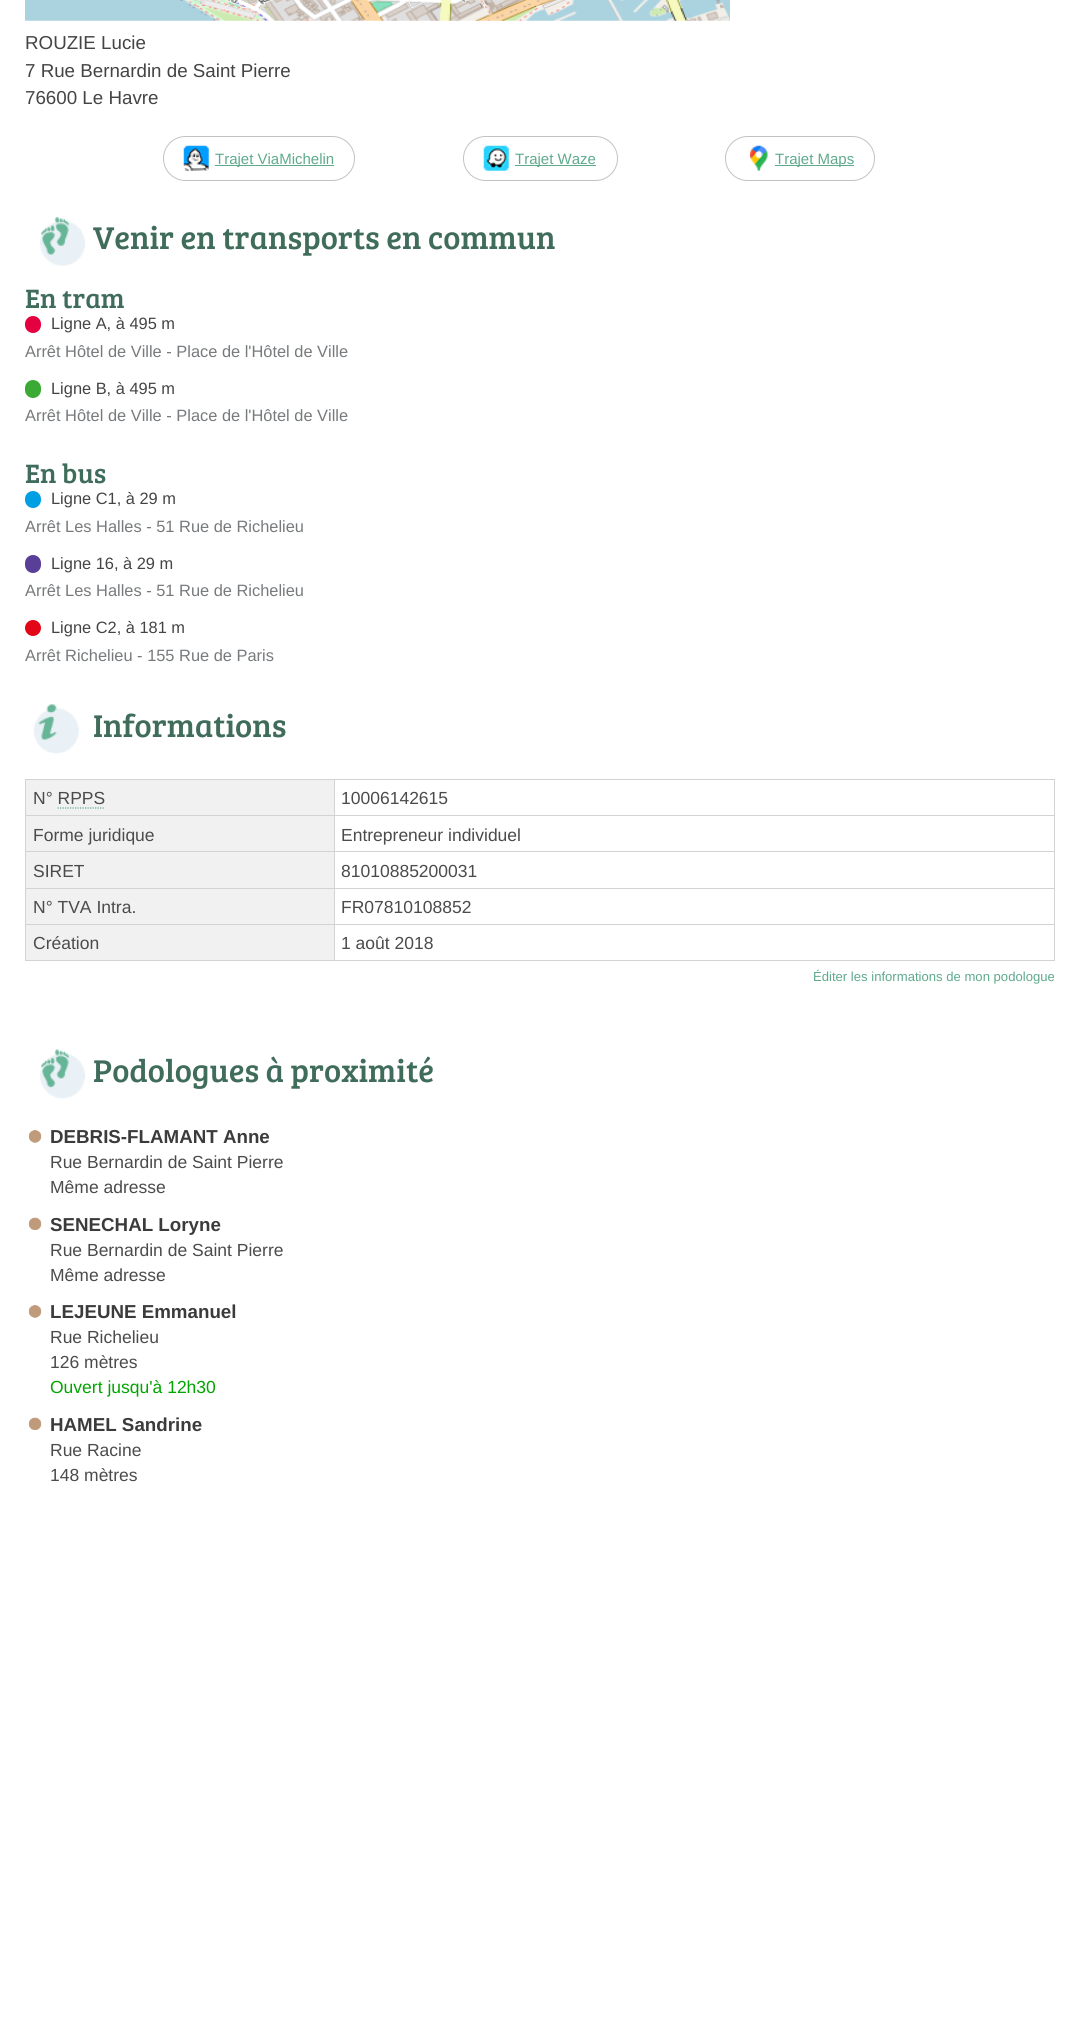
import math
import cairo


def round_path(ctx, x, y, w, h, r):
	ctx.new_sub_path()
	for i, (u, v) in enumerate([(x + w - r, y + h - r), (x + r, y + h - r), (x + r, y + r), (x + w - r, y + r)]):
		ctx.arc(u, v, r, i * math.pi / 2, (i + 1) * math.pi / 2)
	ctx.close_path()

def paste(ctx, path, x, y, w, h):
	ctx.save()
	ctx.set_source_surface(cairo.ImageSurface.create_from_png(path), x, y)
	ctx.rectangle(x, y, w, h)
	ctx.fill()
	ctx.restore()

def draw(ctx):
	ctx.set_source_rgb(1, 1, 1)
	ctx.paint()
	paste(ctx, 'media/1.png', 25, 0, 705, 21)
	ctx.select_font_face('Liberation Sans')
	ctx.set_font_size(18.75)
	ctx.set_source_rgb(0.267, 0.267, 0.267)
	for x, y, s in [
		(25, 49, 'ROUZIE Lucie'),
		(25, 77, '7 Rue Bernardin de Saint Pierre'),
		(25, 104, '76600 Le Havre'),
	]:
		ctx.move_to(x, y)
		ctx.show_text(s)
	round_path(ctx, 163.5, 136.5, 191, 44, 22)
	ctx.set_source_rgb(0.765, 0.765, 0.765)
	ctx.set_line_width(1)
	ctx.stroke()
	paste(ctx, 'media/2.png', 183, 145, 26, 26)
	ctx.set_source_rgb(0.373, 0.667, 0.553)
	ctx.rectangle(215, 165, 119, 1)
	ctx.fill()
	ctx.set_font_size(15)
	ctx.move_to(215, 164)
	ctx.show_text('Trajet ViaMichelin')
	round_path(ctx, 463.5, 136.5, 154, 44, 22)
	ctx.set_source_rgb(0.765, 0.765, 0.765)
	ctx.stroke()
	paste(ctx, 'media/3.png', 483, 145, 26, 26)
	ctx.set_source_rgb(0.373, 0.667, 0.553)
	ctx.rectangle(515, 165, 81, 1)
	ctx.fill()
	ctx.move_to(515, 164)
	ctx.show_text('Trajet Waze')
	round_path(ctx, 725.5, 136.5, 149, 44, 22)
	ctx.set_source_rgb(0.765, 0.765, 0.765)
	ctx.stroke()
	paste(ctx, 'media/4.png', 750, 145, 18, 26)
	ctx.set_source_rgb(0.373, 0.667, 0.553)
	ctx.rectangle(775, 165, 79, 1)
	ctx.fill()
	ctx.move_to(775, 164)
	ctx.show_text('Trajet Maps')
	paste(ctx, 'media/5.png', 40, 216, 45, 50)
	ctx.select_font_face('Bree Serif')
	ctx.set_font_size(32.5)
	ctx.set_source_rgb(0.251, 0.424, 0.357)
	ctx.move_to(93, 249)
	ctx.show_text('Venir en transports en commun')
	ctx.set_font_size(27.5)
	ctx.move_to(25, 308)
	ctx.show_text('En tram')
	ctx.set_source_rgb(0.898, 0, 0.251)
	round_path(ctx, 25, 316, 16, 17, 8)
	ctx.fill()
	ctx.select_font_face('Liberation Sans')
	ctx.set_font_size(16.4)
	ctx.set_source_rgb(0.267, 0.267, 0.267)
	ctx.move_to(51, 329)
	ctx.show_text('Ligne A, à 495 m')
	ctx.set_source_rgb(0.467, 0.478, 0.486)
	ctx.move_to(25, 357)
	ctx.show_text('Arrêt Hôtel de Ville - Place de l\'Hôtel de Ville')
	ctx.set_source_rgb(0.227, 0.667, 0.208)
	round_path(ctx, 25, 380, 16, 18, 8)
	ctx.fill()
	ctx.set_source_rgb(0.267, 0.267, 0.267)
	ctx.move_to(51, 394)
	ctx.show_text('Ligne B, à 495 m')
	ctx.set_source_rgb(0.467, 0.478, 0.486)
	ctx.move_to(25, 421)
	ctx.show_text('Arrêt Hôtel de Ville - Place de l\'Hôtel de Ville')
	ctx.select_font_face('Bree Serif')
	ctx.set_font_size(27.5)
	ctx.set_source_rgb(0.251, 0.424, 0.357)
	ctx.move_to(25, 483)
	ctx.show_text('En bus')
	ctx.set_source_rgb(0, 0.62, 0.89)
	round_path(ctx, 25, 491, 16, 17, 8)
	ctx.fill()
	ctx.select_font_face('Liberation Sans')
	ctx.set_font_size(16.4)
	ctx.set_source_rgb(0.267, 0.267, 0.267)
	ctx.move_to(51, 504)
	ctx.show_text('Ligne C1, à 29 m')
	ctx.set_source_rgb(0.467, 0.478, 0.486)
	ctx.move_to(25, 532)
	ctx.show_text('Arrêt Les Halles - 51 Rue de Richelieu')
	ctx.set_source_rgb(0.353, 0.247, 0.6)
	round_path(ctx, 25, 555, 16, 18, 8)
	ctx.fill()
	ctx.set_source_rgb(0.267, 0.267, 0.267)
	ctx.move_to(51, 569)
	ctx.show_text('Ligne 16, à 29 m')
	ctx.set_source_rgb(0.467, 0.478, 0.486)
	ctx.move_to(25, 596)
	ctx.show_text('Arrêt Les Halles - 51 Rue de Richelieu')
	ctx.set_source_rgb(0.89, 0.024, 0.086)
	ctx.new_path()
	ctx.arc(33, 628, 8, 0, 2 * math.pi)
	ctx.fill()
	ctx.set_source_rgb(0.267, 0.267, 0.267)
	ctx.move_to(51, 633)
	ctx.show_text('Ligne C2, à 181 m')
	ctx.set_source_rgb(0.467, 0.478, 0.486)
	ctx.move_to(25, 661)
	ctx.show_text('Arrêt Richelieu - 155 Rue de Paris')
	paste(ctx, 'media/6.png', 33, 704, 46, 50)
	ctx.select_font_face('Bree Serif')
	ctx.set_font_size(32.5)
	ctx.set_source_rgb(0.251, 0.424, 0.357)
	ctx.move_to(93, 737)
	ctx.show_text('Informations')
	ctx.set_source_rgb(0.945, 0.945, 0.945)
	ctx.rectangle(26, 780, 308, 35)
	ctx.fill()
	ctx.set_source_rgb(0.827, 0.827, 0.827)
	ctx.rectangle(334, 779, 721, 1)
	ctx.rectangle(334, 815, 721, 1)
	ctx.fill()
	ctx.set_source_rgb(0.945, 0.945, 0.945)
	ctx.rectangle(26, 816, 308, 72)
	ctx.fill()
	ctx.set_source_rgb(0.827, 0.827, 0.827)
	ctx.rectangle(334, 851, 721, 1)
	ctx.rectangle(334, 888, 721, 1)
	ctx.rectangle(334, 924, 721, 1)
	ctx.rectangle(1054, 924, 1, 37)
	ctx.rectangle(334, 960, 721, 1)
	ctx.rectangle(334, 924, 1, 37)
	ctx.rectangle(25, 924, 310, 1)
	ctx.rectangle(334, 888, 1, 37)
	ctx.rectangle(25, 888, 310, 1)
	ctx.rectangle(334, 851, 1, 38)
	ctx.rectangle(25, 851, 310, 1)
	ctx.rectangle(334, 815, 1, 38)
	ctx.rectangle(25, 815, 310, 1)
	ctx.rectangle(334, 779, 1, 37)
	ctx.rectangle(25, 779, 310, 1)
	ctx.rectangle(25, 960, 310, 1)
	ctx.rectangle(25, 924, 1, 37)
	ctx.rectangle(25, 888, 1, 37)
	ctx.rectangle(25, 851, 1, 38)
	ctx.rectangle(25, 815, 1, 38)
	ctx.rectangle(25, 779, 1, 37)
	ctx.fill()
	ctx.select_font_face('Liberation Sans')
	ctx.set_font_size(17.5)
	ctx.set_source_rgb(0.294, 0.294, 0.294)
	ctx.move_to(33, 804)
	ctx.show_text('N° RPPS')
	ctx.new_path()
	ctx.move_to(57.5, 808)
	ctx.line_to(105, 808)
	ctx.set_source_rgb(0.373, 0.667, 0.553)
	ctx.set_line_width(1.2)
	ctx.set_dash([1.25, 1.25])
	ctx.stroke()
	ctx.set_source_rgb(0.827, 0.827, 0.827)
	ctx.rectangle(1054, 888, 1, 37)
	ctx.rectangle(1054, 851, 1, 38)
	ctx.rectangle(1054, 815, 1, 38)
	ctx.rectangle(1054, 779, 1, 37)
	ctx.fill()
	ctx.set_source_rgb(0.294, 0.294, 0.294)
	for x, y, s in [
		(341, 804, '10006142615'),
		(33, 841, 'Forme juridique'),
		(341, 841, 'Entrepreneur individuel'),
		(33, 877, 'SIRET'),
		(341, 877, '81010885200031'),
	]:
		ctx.move_to(x, y)
		ctx.show_text(s)
	ctx.set_source_rgb(0.945, 0.945, 0.945)
	ctx.rectangle(26, 889, 308, 35)
	ctx.fill()
	ctx.set_source_rgb(0.294, 0.294, 0.294)
	ctx.move_to(33, 913)
	ctx.show_text('N° TVA Intra.')
	ctx.move_to(341, 913)
	ctx.show_text('FR07810108852')
	ctx.set_source_rgb(0.945, 0.945, 0.945)
	ctx.rectangle(26, 925, 308, 35)
	ctx.fill()
	ctx.set_source_rgb(0.294, 0.294, 0.294)
	ctx.move_to(33, 949)
	ctx.show_text('Création')
	ctx.move_to(341, 949)
	ctx.show_text('1 août 2018')
	ctx.set_font_size(13.1)
	ctx.set_source_rgb(0.373, 0.667, 0.553)
	ctx.move_to(813, 981)
	ctx.show_text('Éditer les informations de mon podologue')
	paste(ctx, 'media/7.png', 40, 1049, 45, 50)
	ctx.select_font_face('Bree Serif')
	ctx.set_font_size(32.5)
	ctx.set_source_rgb(0.251, 0.424, 0.357)
	ctx.move_to(93, 1082)
	ctx.show_text('Podologues à proximité')
	paste(ctx, 'media/8.png', 28, 1130, 14, 13)
	ctx.select_font_face('Liberation Sans', cairo.FONT_SLANT_NORMAL, cairo.FONT_WEIGHT_BOLD)
	ctx.set_font_size(18.75)
	ctx.set_source_rgb(0.231, 0.231, 0.231)
	ctx.move_to(50, 1143)
	ctx.show_text('DEBRIS-FLAMANT Anne')
	ctx.select_font_face('Liberation Sans')
	ctx.set_font_size(17.5)
	ctx.set_source_rgb(0.294, 0.294, 0.294)
	ctx.move_to(50, 1168)
	ctx.show_text('Rue Bernardin de Saint Pierre')
	ctx.move_to(50, 1193)
	ctx.show_text('Même adresse')
	paste(ctx, 'media/9.png', 28, 1217, 14, 13)
	ctx.select_font_face('Liberation Sans', cairo.FONT_SLANT_NORMAL, cairo.FONT_WEIGHT_BOLD)
	ctx.set_font_size(18.75)
	ctx.set_source_rgb(0.231, 0.231, 0.231)
	ctx.move_to(50, 1231)
	ctx.show_text('SENECHAL Loryne')
	ctx.select_font_face('Liberation Sans')
	ctx.set_font_size(17.5)
	ctx.set_source_rgb(0.294, 0.294, 0.294)
	ctx.move_to(50, 1256)
	ctx.show_text('Rue Bernardin de Saint Pierre')
	ctx.move_to(50, 1281)
	ctx.show_text('Même adresse')
	paste(ctx, 'media/8.png', 28, 1305, 14, 13)
	ctx.select_font_face('Liberation Sans', cairo.FONT_SLANT_NORMAL, cairo.FONT_WEIGHT_BOLD)
	ctx.set_font_size(18.75)
	ctx.set_source_rgb(0.231, 0.231, 0.231)
	ctx.move_to(50, 1318)
	ctx.show_text('LEJEUNE Emmanuel')
	ctx.select_font_face('Liberation Sans')
	ctx.set_font_size(17.5)
	ctx.set_source_rgb(0.294, 0.294, 0.294)
	ctx.move_to(50, 1343)
	ctx.show_text('Rue Richelieu')
	ctx.move_to(50, 1368)
	ctx.show_text('126 mètres')
	ctx.set_source_rgb(0, 0.647, 0)
	ctx.move_to(50, 1393)
	ctx.show_text('Ouvert jusqu\'à 12h30')
	paste(ctx, 'media/9.png', 28, 1417, 14, 13)
	ctx.select_font_face('Liberation Sans', cairo.FONT_SLANT_NORMAL, cairo.FONT_WEIGHT_BOLD)
	ctx.set_font_size(18.75)
	ctx.set_source_rgb(0.231, 0.231, 0.231)
	ctx.move_to(50, 1431)
	ctx.show_text('HAMEL Sandrine')
	ctx.select_font_face('Liberation Sans')
	ctx.set_font_size(17.5)
	ctx.set_source_rgb(0.294, 0.294, 0.294)
	ctx.move_to(50, 1456)
	ctx.show_text('Rue Racine')
	ctx.move_to(50, 1481)
	ctx.show_text('148 mètres')


surface = cairo.ImageSurface(cairo.FORMAT_RGB24, 1079, 2018)
ctx = cairo.Context(surface)
options = cairo.FontOptions()
options.set_hint_metrics(cairo.HINT_METRICS_OFF)
options.set_hint_style(cairo.HINT_STYLE_NONE)
ctx.set_font_options(options)
ctx.set_miter_limit(4)
draw(ctx)
surface.write_to_png('image.png')
